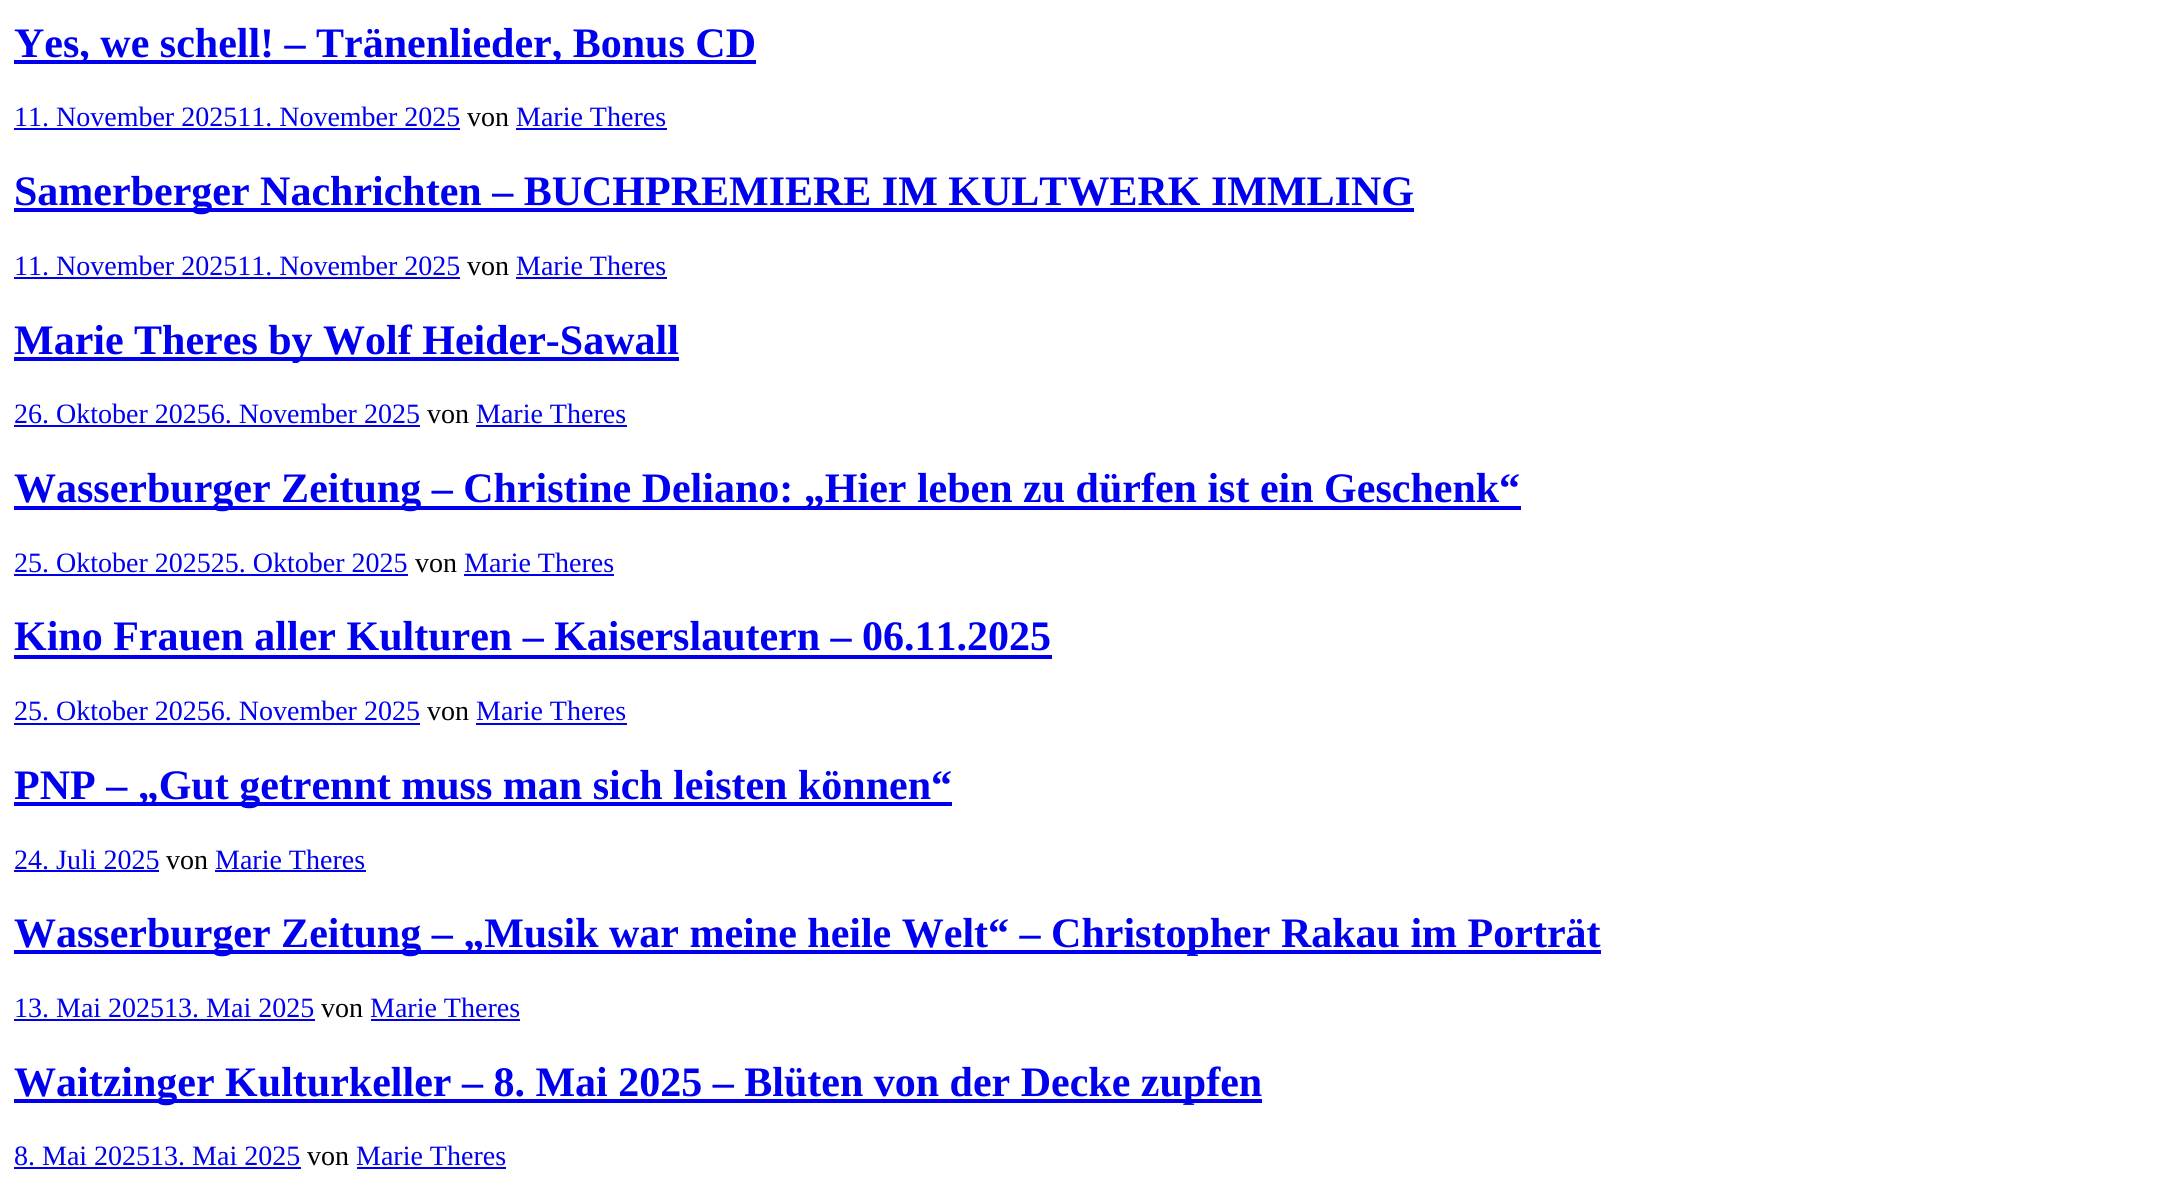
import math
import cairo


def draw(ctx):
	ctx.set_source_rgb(1, 1, 1)
	ctx.paint()
	ctx.set_source_rgb(0, 0, 0.933)
	ctx.rectangle(14, 60, 742, 4)
	ctx.fill()
	ctx.select_font_face('Liberation Serif', cairo.FONT_SLANT_NORMAL, cairo.FONT_WEIGHT_BOLD)
	ctx.set_font_size(42)
	ctx.move_to(14, 57)
	ctx.show_text('Yes, we schell! – Tränenlieder, Bonus CD')
	ctx.select_font_face('Liberation Serif')
	ctx.set_font_size(28)
	ctx.move_to(14, 126)
	ctx.show_text('11. November 202511. November 2025')
	ctx.rectangle(14, 128, 446, 2)
	ctx.fill()
	ctx.set_source_rgb(0, 0, 0)
	ctx.move_to(467, 126)
	ctx.show_text('von')
	ctx.set_source_rgb(0, 0, 0.933)
	ctx.move_to(516, 126)
	ctx.show_text('Marie Theres')
	ctx.rectangle(516, 128, 151, 2)
	ctx.fill()
	ctx.rectangle(14, 208, 1400, 4)
	ctx.fill()
	ctx.select_font_face('Liberation Serif', cairo.FONT_SLANT_NORMAL, cairo.FONT_WEIGHT_BOLD)
	ctx.set_font_size(42)
	ctx.move_to(14, 205)
	ctx.show_text('Samerberger Nachrichten – BUCHPREMIERE IM KULTWERK IMMLING')
	ctx.select_font_face('Liberation Serif')
	ctx.set_font_size(28)
	ctx.move_to(14, 275)
	ctx.show_text('11. November 202511. November 2025')
	ctx.rectangle(14, 277, 446, 2)
	ctx.fill()
	ctx.set_source_rgb(0, 0, 0)
	ctx.move_to(467, 275)
	ctx.show_text('von')
	ctx.set_source_rgb(0, 0, 0.933)
	ctx.move_to(516, 275)
	ctx.show_text('Marie Theres')
	ctx.rectangle(516, 277, 151, 2)
	ctx.fill()
	ctx.rectangle(14, 357, 665, 4)
	ctx.fill()
	ctx.select_font_face('Liberation Serif', cairo.FONT_SLANT_NORMAL, cairo.FONT_WEIGHT_BOLD)
	ctx.set_font_size(42)
	ctx.move_to(14, 354)
	ctx.show_text('Marie Theres by Wolf Heider-Sawall')
	ctx.select_font_face('Liberation Serif')
	ctx.set_font_size(28)
	ctx.move_to(14, 423)
	ctx.show_text('26. Oktober 20256. November 2025')
	ctx.rectangle(14, 425, 406, 2)
	ctx.fill()
	ctx.set_source_rgb(0, 0, 0)
	ctx.move_to(427, 423)
	ctx.show_text('von')
	ctx.set_source_rgb(0, 0, 0.933)
	ctx.move_to(476, 423)
	ctx.show_text('Marie Theres')
	ctx.rectangle(476, 425, 151, 2)
	ctx.fill()
	ctx.rectangle(14, 506, 1507, 4)
	ctx.fill()
	ctx.select_font_face('Liberation Serif', cairo.FONT_SLANT_NORMAL, cairo.FONT_WEIGHT_BOLD)
	ctx.set_font_size(42)
	ctx.move_to(14, 502)
	ctx.show_text('Wasserburger Zeitung – Christine Deliano: „Hier leben zu dürfen ist ein Geschenk“')
	ctx.select_font_face('Liberation Serif')
	ctx.set_font_size(28)
	ctx.move_to(14, 572)
	ctx.show_text('25. Oktober 202525. Oktober 2025')
	ctx.rectangle(14, 574, 394, 2)
	ctx.fill()
	ctx.set_source_rgb(0, 0, 0)
	ctx.move_to(415, 572)
	ctx.show_text('von')
	ctx.set_source_rgb(0, 0, 0.933)
	ctx.move_to(464, 572)
	ctx.show_text('Marie Theres')
	ctx.rectangle(464, 574, 150, 2)
	ctx.fill()
	ctx.select_font_face('Liberation Serif', cairo.FONT_SLANT_NORMAL, cairo.FONT_WEIGHT_BOLD)
	ctx.set_font_size(42)
	ctx.move_to(14, 650)
	ctx.show_text('Kino Frauen aller Kulturen – Kaiserslautern – 06.11.2025')
	ctx.rectangle(14, 655, 1038, 4)
	ctx.fill()
	ctx.select_font_face('Liberation Serif')
	ctx.set_font_size(28)
	ctx.move_to(14, 720)
	ctx.show_text('25. Oktober 20256. November 2025')
	ctx.rectangle(14, 723, 406, 2)
	ctx.fill()
	ctx.set_source_rgb(0, 0, 0)
	ctx.move_to(427, 720)
	ctx.show_text('von')
	ctx.set_source_rgb(0, 0, 0.933)
	ctx.move_to(476, 720)
	ctx.show_text('Marie Theres')
	ctx.rectangle(476, 723, 151, 2)
	ctx.fill()
	ctx.rectangle(14, 802, 938, 4)
	ctx.fill()
	ctx.select_font_face('Liberation Serif', cairo.FONT_SLANT_NORMAL, cairo.FONT_WEIGHT_BOLD)
	ctx.set_font_size(42)
	ctx.move_to(14, 799)
	ctx.show_text('PNP – „Gut getrennt muss man sich leisten können“')
	ctx.select_font_face('Liberation Serif')
	ctx.set_font_size(28)
	ctx.move_to(14, 869)
	ctx.show_text('24. Juli 2025')
	ctx.rectangle(14, 870, 145, 2)
	ctx.fill()
	ctx.set_source_rgb(0, 0, 0)
	ctx.move_to(166, 869)
	ctx.show_text('von')
	ctx.set_source_rgb(0, 0, 0.933)
	ctx.rectangle(215, 870, 151, 2)
	ctx.fill()
	ctx.move_to(215, 869)
	ctx.show_text('Marie Theres')
	ctx.rectangle(14, 950, 1587, 4)
	ctx.fill()
	ctx.select_font_face('Liberation Serif', cairo.FONT_SLANT_NORMAL, cairo.FONT_WEIGHT_BOLD)
	ctx.set_font_size(42)
	ctx.move_to(14, 947)
	ctx.show_text('Wasserburger Zeitung – „Musik war meine heile Welt“ – Christopher Rakau im Porträt')
	ctx.select_font_face('Liberation Serif')
	ctx.set_font_size(28)
	ctx.move_to(14, 1017)
	ctx.show_text('13. Mai 202513. Mai 2025')
	ctx.rectangle(14, 1019, 301, 2)
	ctx.fill()
	ctx.set_source_rgb(0, 0, 0)
	ctx.move_to(321, 1017)
	ctx.show_text('von')
	ctx.set_source_rgb(0, 0, 0.933)
	ctx.move_to(370, 1017)
	ctx.show_text('Marie Theres')
	ctx.rectangle(371, 1019, 149, 2)
	ctx.fill()
	ctx.rectangle(14, 1099, 1248, 4)
	ctx.fill()
	ctx.select_font_face('Liberation Serif', cairo.FONT_SLANT_NORMAL, cairo.FONT_WEIGHT_BOLD)
	ctx.set_font_size(42)
	ctx.move_to(14, 1096)
	ctx.show_text('Waitzinger Kulturkeller – 8. Mai 2025 – Blüten von der Decke zupfen')
	ctx.select_font_face('Liberation Serif')
	ctx.set_font_size(28)
	ctx.move_to(14, 1165)
	ctx.show_text('8. Mai 202513. Mai 2025')
	ctx.rectangle(14, 1167, 287, 2)
	ctx.fill()
	ctx.set_source_rgb(0, 0, 0)
	ctx.move_to(307, 1165)
	ctx.show_text('von')
	ctx.set_source_rgb(0, 0, 0.933)
	ctx.move_to(356, 1165)
	ctx.show_text('Marie Theres')
	ctx.rectangle(357, 1167, 149, 2)
	ctx.fill()


surface = cairo.ImageSurface(cairo.FORMAT_RGB24, 2164, 1185)
ctx = cairo.Context(surface)
options = cairo.FontOptions()
options.set_hint_metrics(cairo.HINT_METRICS_OFF)
options.set_hint_style(cairo.HINT_STYLE_NONE)
ctx.set_font_options(options)
ctx.set_miter_limit(4)
draw(ctx)
surface.write_to_png('image.png')
